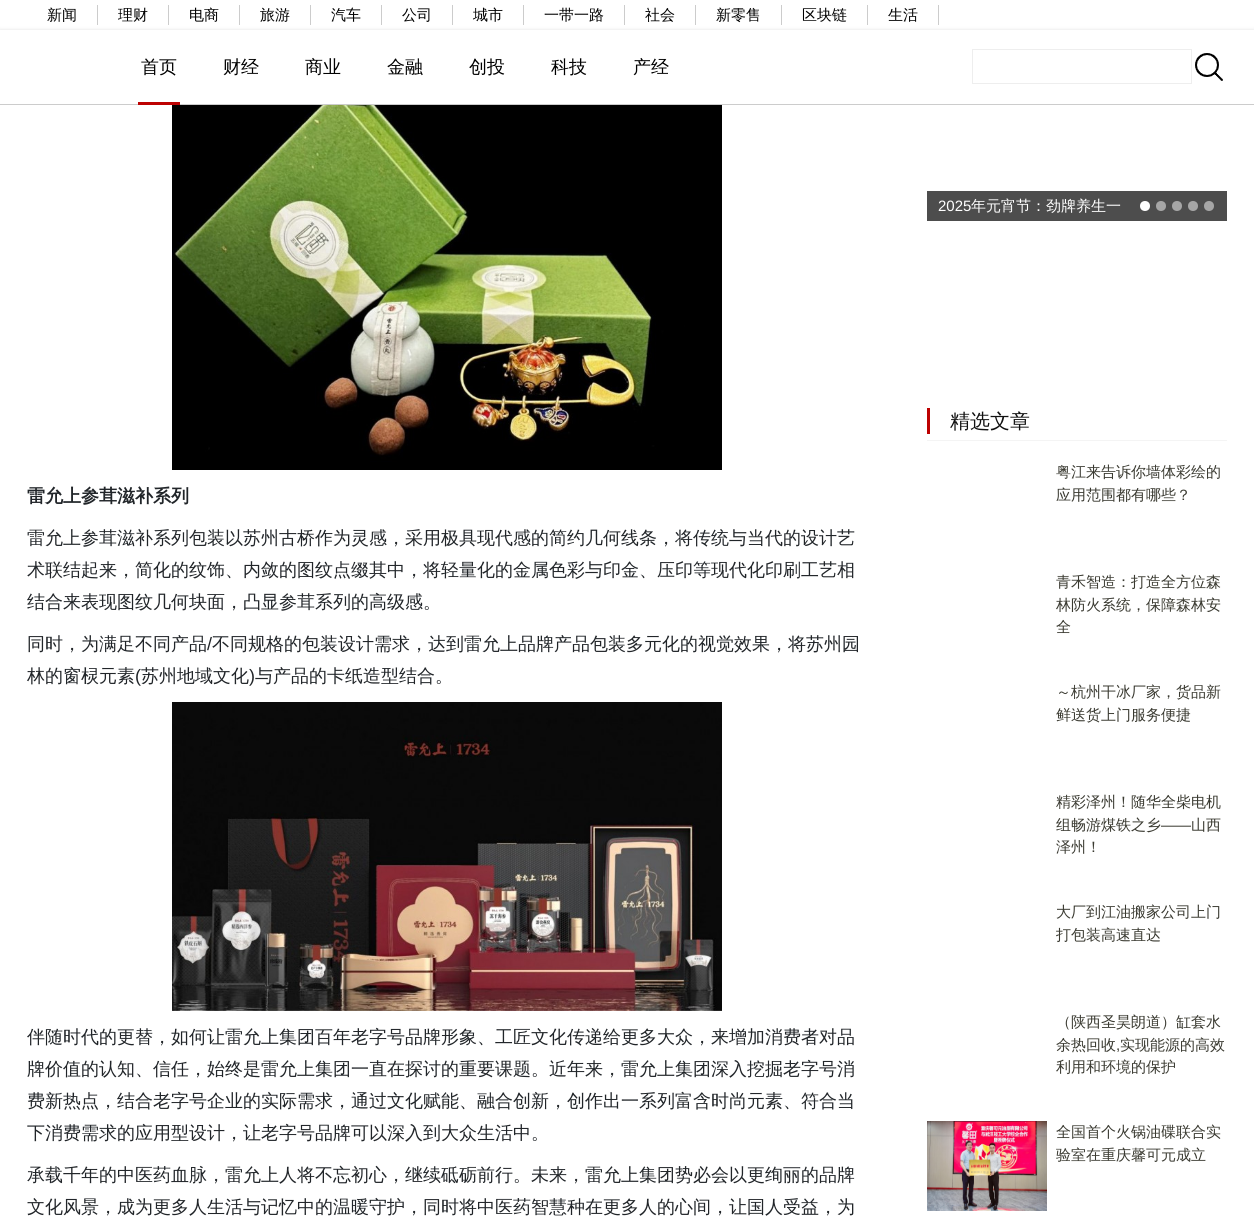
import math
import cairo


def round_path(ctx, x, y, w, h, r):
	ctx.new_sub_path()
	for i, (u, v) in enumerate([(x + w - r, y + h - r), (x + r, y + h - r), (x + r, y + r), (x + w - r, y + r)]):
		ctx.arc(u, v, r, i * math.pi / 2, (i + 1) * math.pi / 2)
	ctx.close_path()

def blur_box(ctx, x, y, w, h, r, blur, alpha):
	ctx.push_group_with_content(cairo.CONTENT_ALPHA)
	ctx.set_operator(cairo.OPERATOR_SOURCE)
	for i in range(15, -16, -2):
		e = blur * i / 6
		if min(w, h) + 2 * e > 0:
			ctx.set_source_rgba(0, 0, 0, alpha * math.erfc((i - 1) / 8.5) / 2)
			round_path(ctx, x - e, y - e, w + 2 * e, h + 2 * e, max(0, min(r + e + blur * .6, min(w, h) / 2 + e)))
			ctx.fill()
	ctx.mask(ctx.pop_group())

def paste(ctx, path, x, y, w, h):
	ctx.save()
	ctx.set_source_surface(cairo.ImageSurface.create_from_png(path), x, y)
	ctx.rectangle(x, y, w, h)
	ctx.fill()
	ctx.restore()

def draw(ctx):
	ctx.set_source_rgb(1, 1, 1)
	ctx.paint()
	paste(ctx, 'media/2.png', 172, 105, 550, 365)
	ctx.save()
	ctx.rectangle(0, 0, 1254, 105)
	ctx.clip()
	ctx.set_source_rgb(0, 0, 0)
	blur_box(ctx, 0, 30, 1254, 75, 0, 2, 0.12)
	ctx.restore()
	ctx.set_source_rgb(0.8, 0.8, 0.8)
	ctx.rectangle(97, 5, 1, 20)
	ctx.fill()
	ctx.select_font_face('WenQuanYi Zen Hei Medium')
	ctx.set_font_size(15)
	ctx.set_source_rgb(0, 0, 0)
	ctx.move_to(47, 20)
	ctx.show_text('新闻')
	ctx.set_source_rgb(0.8, 0.8, 0.8)
	ctx.rectangle(168, 5, 1, 20)
	ctx.fill()
	ctx.set_source_rgb(0, 0, 0)
	ctx.move_to(118, 20)
	ctx.show_text('理财')
	ctx.set_source_rgb(0.8, 0.8, 0.8)
	ctx.rectangle(239, 5, 1, 20)
	ctx.fill()
	ctx.set_source_rgb(0, 0, 0)
	ctx.move_to(189, 20)
	ctx.show_text('电商')
	ctx.set_source_rgb(0.8, 0.8, 0.8)
	ctx.rectangle(310, 5, 1, 20)
	ctx.fill()
	ctx.set_source_rgb(0, 0, 0)
	ctx.move_to(260, 20)
	ctx.show_text('旅游')
	ctx.set_source_rgb(0.8, 0.8, 0.8)
	ctx.rectangle(381, 5, 1, 20)
	ctx.fill()
	ctx.set_source_rgb(0, 0, 0)
	ctx.move_to(331, 20)
	ctx.show_text('汽车')
	ctx.set_source_rgb(0.8, 0.8, 0.8)
	ctx.rectangle(452, 5, 1, 20)
	ctx.fill()
	ctx.set_source_rgb(0, 0, 0)
	ctx.move_to(402, 20)
	ctx.show_text('公司')
	ctx.set_source_rgb(0.8, 0.8, 0.8)
	ctx.rectangle(523, 5, 1, 20)
	ctx.fill()
	ctx.set_source_rgb(0, 0, 0)
	ctx.move_to(473, 20)
	ctx.show_text('城市')
	ctx.set_source_rgb(0.8, 0.8, 0.8)
	ctx.rectangle(624, 5, 1, 20)
	ctx.fill()
	ctx.set_source_rgb(0, 0, 0)
	ctx.move_to(544, 20)
	ctx.show_text('一带一路')
	ctx.set_source_rgb(0.8, 0.8, 0.8)
	ctx.rectangle(695, 5, 1, 20)
	ctx.fill()
	ctx.set_source_rgb(0, 0, 0)
	ctx.move_to(645, 20)
	ctx.show_text('社会')
	ctx.set_source_rgb(0.8, 0.8, 0.8)
	ctx.rectangle(781, 5, 1, 20)
	ctx.fill()
	ctx.set_source_rgb(0, 0, 0)
	ctx.move_to(716, 20)
	ctx.show_text('新零售')
	ctx.set_source_rgb(0.8, 0.8, 0.8)
	ctx.rectangle(867, 5, 1, 20)
	ctx.fill()
	ctx.set_source_rgb(0, 0, 0)
	ctx.move_to(802, 20)
	ctx.show_text('区块链')
	ctx.set_source_rgb(0.8, 0.8, 0.8)
	ctx.rectangle(938, 5, 1, 20)
	ctx.fill()
	ctx.set_source_rgb(0, 0, 0)
	ctx.move_to(888, 20)
	ctx.show_text('生活')
	ctx.set_source_rgb(1, 1, 1)
	ctx.rectangle(0, 30, 1254, 74)
	ctx.fill()
	ctx.set_source_rgb(0.8, 0.8, 0.8)
	ctx.rectangle(0, 104, 1254, 1)
	ctx.fill()
	ctx.set_source_rgb(0.741, 0.008, 0.008)
	ctx.rectangle(138, 102, 42, 3)
	ctx.fill()
	ctx.set_font_size(18)
	ctx.set_source_rgb(0, 0, 0)
	for x, y, s in [
		(141, 73, '首页'),
		(223, 73, '财经'),
		(305, 73, '商业'),
		(387, 73, '金融'),
		(469, 73, '创投'),
		(551, 73, '科技'),
		(633, 73, '产经'),
	]:
		ctx.move_to(x, y)
		ctx.show_text(s)
	ctx.rectangle(972.5, 49.5, 219, 34)
	ctx.set_source_rgb(0.933, 0.933, 0.933)
	ctx.set_line_width(1)
	ctx.stroke()
	paste(ctx, 'media/1.png', 1195, 53, 28, 28)
	ctx.select_font_face('WenQuanYi Zen Hei', cairo.FONT_SLANT_NORMAL, cairo.FONT_WEIGHT_BOLD)
	ctx.set_source_rgb(0.129, 0.145, 0.161)
	ctx.move_to(27, 502)
	ctx.show_text('雷允上参茸滋补系列')
	ctx.select_font_face('WenQuanYi Zen Hei Medium')
	for x, y, s in [
		(27, 544, '雷允上参茸滋补系列包装以苏州古桥作为灵感，采用极具现代感的简约几何线条，将传统与当代的设计艺'),
		(27, 576, '术联结起来，简化的纹饰、内敛的图纹点缀其中，将轻量化的金属色彩与印金、压印等现代化印刷工艺相'),
		(27, 608, '结合来表现图纹几何块面，凸显参茸系列的高级感。'),
		(27, 650, '同时，为满足不同产品'),
	]:
		ctx.move_to(x, y)
		ctx.show_text(s)
	ctx.select_font_face('Liberation Sans')
	ctx.move_to(207, 650)
	ctx.show_text('/')
	ctx.select_font_face('WenQuanYi Zen Hei Medium')
	ctx.move_to(212, 650)
	ctx.show_text('不同规格的包装设计需求，达到雷允上品牌产品包装多元化的视觉效果，将苏州园')
	ctx.move_to(27, 682)
	ctx.show_text('林的窗棂元素')
	ctx.select_font_face('Liberation Sans')
	ctx.move_to(135, 682)
	ctx.show_text('(')
	ctx.select_font_face('WenQuanYi Zen Hei Medium')
	ctx.move_to(141, 682)
	ctx.show_text('苏州地域文化')
	ctx.select_font_face('Liberation Sans')
	ctx.move_to(249, 682)
	ctx.show_text(')')
	ctx.select_font_face('WenQuanYi Zen Hei Medium')
	ctx.move_to(255, 682)
	ctx.show_text('与产品的卡纸造型结合。')
	paste(ctx, 'media/3.png', 172, 702, 550, 309)
	for x, y, s in [
		(27, 1043, '伴随时代的更替，如何让雷允上集团百年老字号品牌形象、工匠文化传递给更多大众，来增加消费者对品'),
		(27, 1075, '牌价值的认知、信任，始终是雷允上集团一直在探讨的重要课题。近年来，雷允上集团深入挖掘老字号消'),
		(27, 1107, '费新热点，结合老字号企业的实际需求，通过文化赋能、融合创新，创作出一系列富含时尚元素、符合当'),
		(27, 1139, '下消费需求的应用型设计，让老字号品牌可以深入到大众生活中。'),
		(27, 1181, '承载千年的中医药血脉，雷允上人将不忘初心，继续砥砺前行。未来，雷允上集团势必会以更绚丽的品牌'),
		(27, 1213, '文化风景，成为更多人生活与记忆中的温暖守护，同时将中医药智慧种在更多人的心间，让国人受益，为'),
	]:
		ctx.move_to(x, y)
		ctx.show_text(s)
	ctx.set_source_rgb(0.302, 0.302, 0.302)
	ctx.rectangle(927, 191, 300, 30)
	ctx.fill()
	ctx.select_font_face('Liberation Sans')
	ctx.set_font_size(15)
	ctx.set_source_rgb(1, 1, 1)
	ctx.move_to(938, 211)
	ctx.show_text('2025')
	ctx.select_font_face('WenQuanYi Zen Hei Medium')
	ctx.move_to(971, 211)
	ctx.show_text('年元宵节：劲牌养生一')
	ctx.new_path()
	ctx.arc(1145, 206, 5, 0, 2 * math.pi)
	ctx.fill()
	ctx.set_source_rgb(0.651, 0.651, 0.651)
	ctx.arc(1161, 206, 5, 0, 2 * math.pi)
	ctx.fill()
	ctx.arc(1177, 206, 5, 0, 2 * math.pi)
	ctx.fill()
	ctx.arc(1193, 206, 5, 0, 2 * math.pi)
	ctx.fill()
	ctx.arc(1209, 206, 5, 0, 2 * math.pi)
	ctx.fill()
	ctx.set_source_rgb(0.957, 0.957, 0.957)
	ctx.rectangle(927, 440, 300, 1)
	ctx.fill()
	ctx.set_source_rgb(0.741, 0.008, 0.008)
	ctx.rectangle(927, 408, 3, 26)
	ctx.fill()
	ctx.set_font_size(20)
	ctx.set_source_rgb(0.067, 0.067, 0.067)
	ctx.move_to(950, 428)
	ctx.show_text('精选文章')
	ctx.set_font_size(15)
	ctx.set_source_rgb(0.227, 0.227, 0.192)
	for x, y, s in [
		(1056, 477, '粤江来告诉你墙体彩绘的'),
		(1056, 500, '应用范围都有哪些？'),
		(1056, 587, '青禾智造：打造全方位森'),
		(1056, 610, '林防火系统，保障森林安'),
		(1056, 632, '全'),
		(1056, 697, '～杭州干冰厂家，货品新'),
		(1056, 720, '鲜送货上门服务便捷'),
		(1056, 807, '精彩泽州！随华全柴电机'),
		(1056, 830, '组畅游煤铁之乡'),
	]:
		ctx.move_to(x, y)
		ctx.show_text(s)
	ctx.select_font_face('Liberation Sans')
	ctx.move_to(1161, 830)
	ctx.show_text('——')
	ctx.select_font_face('WenQuanYi Zen Hei Medium')
	for x, y, s in [
		(1191, 830, '山西'),
		(1056, 852, '泽州！'),
		(1056, 917, '大厂到江油搬家公司上门'),
		(1056, 940, '打包装高速直达'),
		(1056, 1027, '（陕西圣昊朗道）缸套水'),
		(1056, 1050, '余热回收'),
	]:
		ctx.move_to(x, y)
		ctx.show_text(s)
	ctx.select_font_face('Liberation Sans')
	ctx.move_to(1116, 1050)
	ctx.show_text(',')
	ctx.select_font_face('WenQuanYi Zen Hei Medium')
	ctx.move_to(1120, 1050)
	ctx.show_text('实现能源的高效')
	ctx.move_to(1056, 1072)
	ctx.show_text('利用和环境的保护')
	paste(ctx, 'media/4.png', 927, 1121, 120, 90)
	ctx.move_to(1056, 1137)
	ctx.show_text('全国首个火锅油碟联合实')
	ctx.move_to(1056, 1160)
	ctx.show_text('验室在重庆馨可元成立')


surface = cairo.ImageSurface(cairo.FORMAT_RGB24, 1254, 1225)
ctx = cairo.Context(surface)
options = cairo.FontOptions()
options.set_hint_metrics(cairo.HINT_METRICS_OFF)
options.set_hint_style(cairo.HINT_STYLE_NONE)
ctx.set_font_options(options)
ctx.set_miter_limit(4)
draw(ctx)
surface.write_to_png('image.png')
